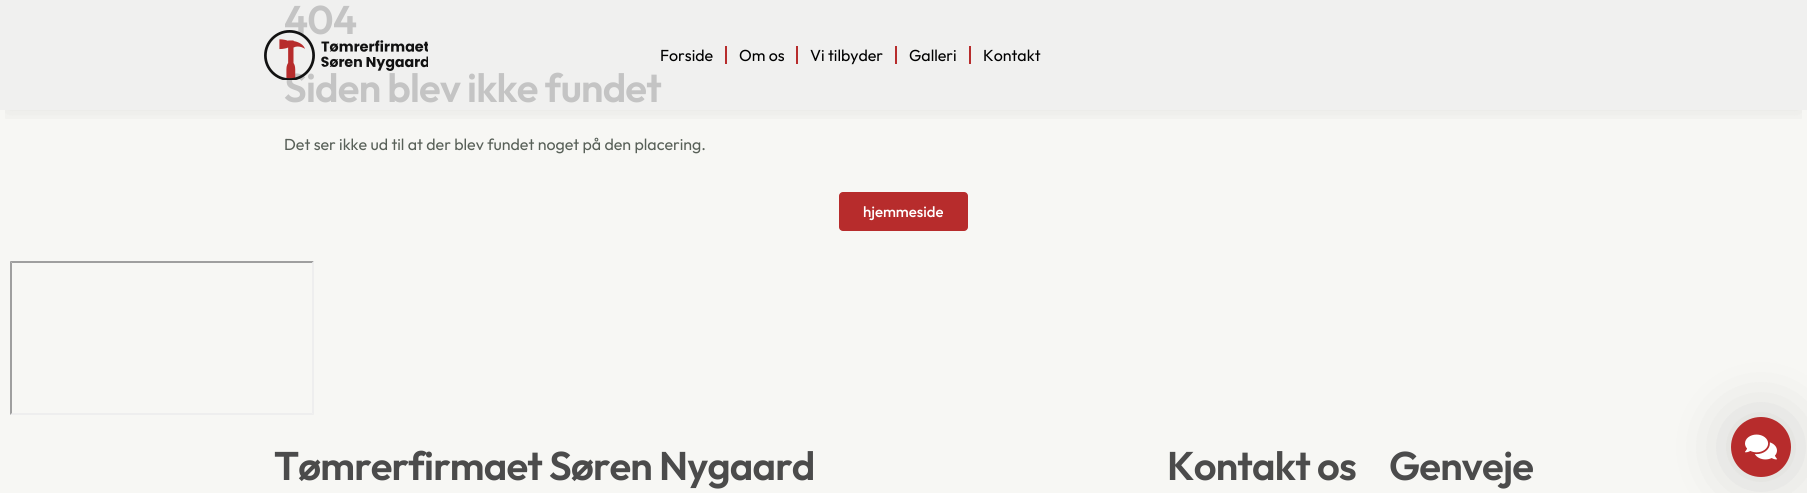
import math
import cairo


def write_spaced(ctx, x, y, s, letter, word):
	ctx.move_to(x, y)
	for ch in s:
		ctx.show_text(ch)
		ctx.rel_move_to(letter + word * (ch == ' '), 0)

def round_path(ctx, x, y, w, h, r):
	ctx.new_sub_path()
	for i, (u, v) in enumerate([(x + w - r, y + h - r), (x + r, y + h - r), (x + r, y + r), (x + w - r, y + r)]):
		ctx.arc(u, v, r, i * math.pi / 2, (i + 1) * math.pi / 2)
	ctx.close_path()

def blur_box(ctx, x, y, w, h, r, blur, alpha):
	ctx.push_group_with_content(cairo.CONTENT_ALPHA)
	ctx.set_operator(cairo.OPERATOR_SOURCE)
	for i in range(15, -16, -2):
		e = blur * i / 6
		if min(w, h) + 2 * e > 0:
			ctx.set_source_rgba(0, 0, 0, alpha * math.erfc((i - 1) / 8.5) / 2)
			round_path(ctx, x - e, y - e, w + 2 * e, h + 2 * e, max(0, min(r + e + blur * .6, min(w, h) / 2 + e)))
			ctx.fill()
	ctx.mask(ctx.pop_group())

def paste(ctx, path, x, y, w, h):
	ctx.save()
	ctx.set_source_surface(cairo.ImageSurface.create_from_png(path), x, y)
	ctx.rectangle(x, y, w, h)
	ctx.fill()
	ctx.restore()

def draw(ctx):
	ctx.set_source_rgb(0.965, 0.965, 0.957)
	ctx.paint()
	ctx.set_source_rgb(0.941, 0.941, 0.937)
	ctx.rectangle(0, 0, 1807, 110)
	ctx.fill()
	ctx.select_font_face('Outfit SemiBold')
	ctx.set_font_size(40)
	ctx.set_source_rgb(0.769, 0.769, 0.769)
	write_spaced(ctx, 284, 34, '404', -0.8, 0)
	write_spaced(ctx, 284, 102, 'Siden blev ikke fundet', -0.8, 0)
	ctx.select_font_face('Outfit')
	ctx.set_font_size(16)
	ctx.set_source_rgb(0.345, 0.376, 0.345)
	ctx.move_to(284, 150)
	ctx.show_text('Det ser ikke ud til at der blev fundet noget på den placering.')
	ctx.set_source_rgb(0.718, 0.173, 0.173)
	round_path(ctx, 839, 192, 129, 39, 4)
	ctx.fill()
	ctx.select_font_face('Outfit Medium')
	ctx.set_font_size(15)
	ctx.set_source_rgb(1, 1, 1)
	ctx.move_to(863, 217)
	ctx.show_text('hjemmeside')
	ctx.save()
	ctx.rectangle(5, 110, 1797, 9)
	ctx.clip()
	ctx.set_source_rgb(0, 0, 0)
	blur_box(ctx, 5, 9, 1797, 100, 0, 13, 0.09)
	ctx.restore()
	paste(ctx, 'media/1.png', 264, 30, 164, 50)
	ctx.select_font_face('Outfit')
	ctx.set_font_size(16)
	ctx.set_source_rgb(0, 0, 0)
	ctx.move_to(660, 61)
	ctx.show_text('Forside')
	ctx.set_source_rgb(0.718, 0.173, 0.173)
	ctx.rectangle(725, 46, 2, 18)
	ctx.fill()
	ctx.set_source_rgb(0, 0, 0)
	ctx.move_to(739, 61)
	ctx.show_text('Om os')
	ctx.set_source_rgb(0.718, 0.173, 0.173)
	ctx.rectangle(796, 46, 2, 18)
	ctx.fill()
	ctx.set_source_rgb(0, 0, 0)
	ctx.move_to(810, 61)
	ctx.show_text('Vi tilbyder')
	ctx.set_source_rgb(0.718, 0.173, 0.173)
	ctx.rectangle(895, 46, 2, 18)
	ctx.fill()
	ctx.set_source_rgb(0, 0, 0)
	ctx.move_to(909, 61)
	ctx.show_text('Galleri')
	ctx.set_source_rgb(0.718, 0.173, 0.173)
	ctx.rectangle(969, 46, 2, 18)
	ctx.fill()
	ctx.set_source_rgb(0, 0, 0)
	ctx.move_to(983, 61)
	ctx.show_text('Kontakt')
	ctx.set_source_rgb(0.624, 0.624, 0.624)
	ctx.new_path()
	ctx.move_to(10, 261)
	ctx.line_to(314, 261)
	ctx.line_to(312, 263)
	ctx.line_to(12, 263)
	ctx.close_path()
	ctx.fill()
	ctx.set_source_rgb(0.933, 0.933, 0.933)
	ctx.new_path()
	ctx.move_to(314, 261)
	ctx.line_to(314, 415)
	ctx.line_to(312, 413)
	ctx.line_to(312, 263)
	ctx.close_path()
	ctx.fill()
	ctx.new_path()
	ctx.move_to(314, 415)
	ctx.line_to(10, 415)
	ctx.line_to(12, 413)
	ctx.line_to(312, 413)
	ctx.close_path()
	ctx.fill()
	ctx.set_source_rgb(0.624, 0.624, 0.624)
	ctx.new_path()
	ctx.move_to(10, 415)
	ctx.line_to(10, 261)
	ctx.line_to(12, 263)
	ctx.line_to(12, 413)
	ctx.close_path()
	ctx.fill()
	ctx.select_font_face('Outfit SemiBold')
	ctx.set_font_size(40)
	ctx.set_source_rgb(0.294, 0.294, 0.294)
	for x, y, s in [
		(274, 480, 'Tømrerfirmaet Søren Nygaard'),
		(1167, 480, 'Kontakt os'),
		(1389, 480, 'Genveje'),
	]:
		write_spaced(ctx, x, y, s, -0.8, 0)
	ctx.set_source_rgb(0, 0, 0)
	blur_box(ctx, 1731, 417, 60, 60, 30, 30, 0.15)
	ctx.set_source_rgb(0.718, 0.173, 0.173)
	ctx.arc(1761, 447, 30, 0, 2 * math.pi)
	ctx.fill()
	paste(ctx, 'media/2.png', 1745, 434, 32, 26)


surface = cairo.ImageSurface(cairo.FORMAT_RGB24, 1807, 493)
ctx = cairo.Context(surface)
options = cairo.FontOptions()
options.set_hint_metrics(cairo.HINT_METRICS_OFF)
options.set_hint_style(cairo.HINT_STYLE_NONE)
ctx.set_font_options(options)
ctx.set_miter_limit(4)
draw(ctx)
surface.write_to_png('image.png')
